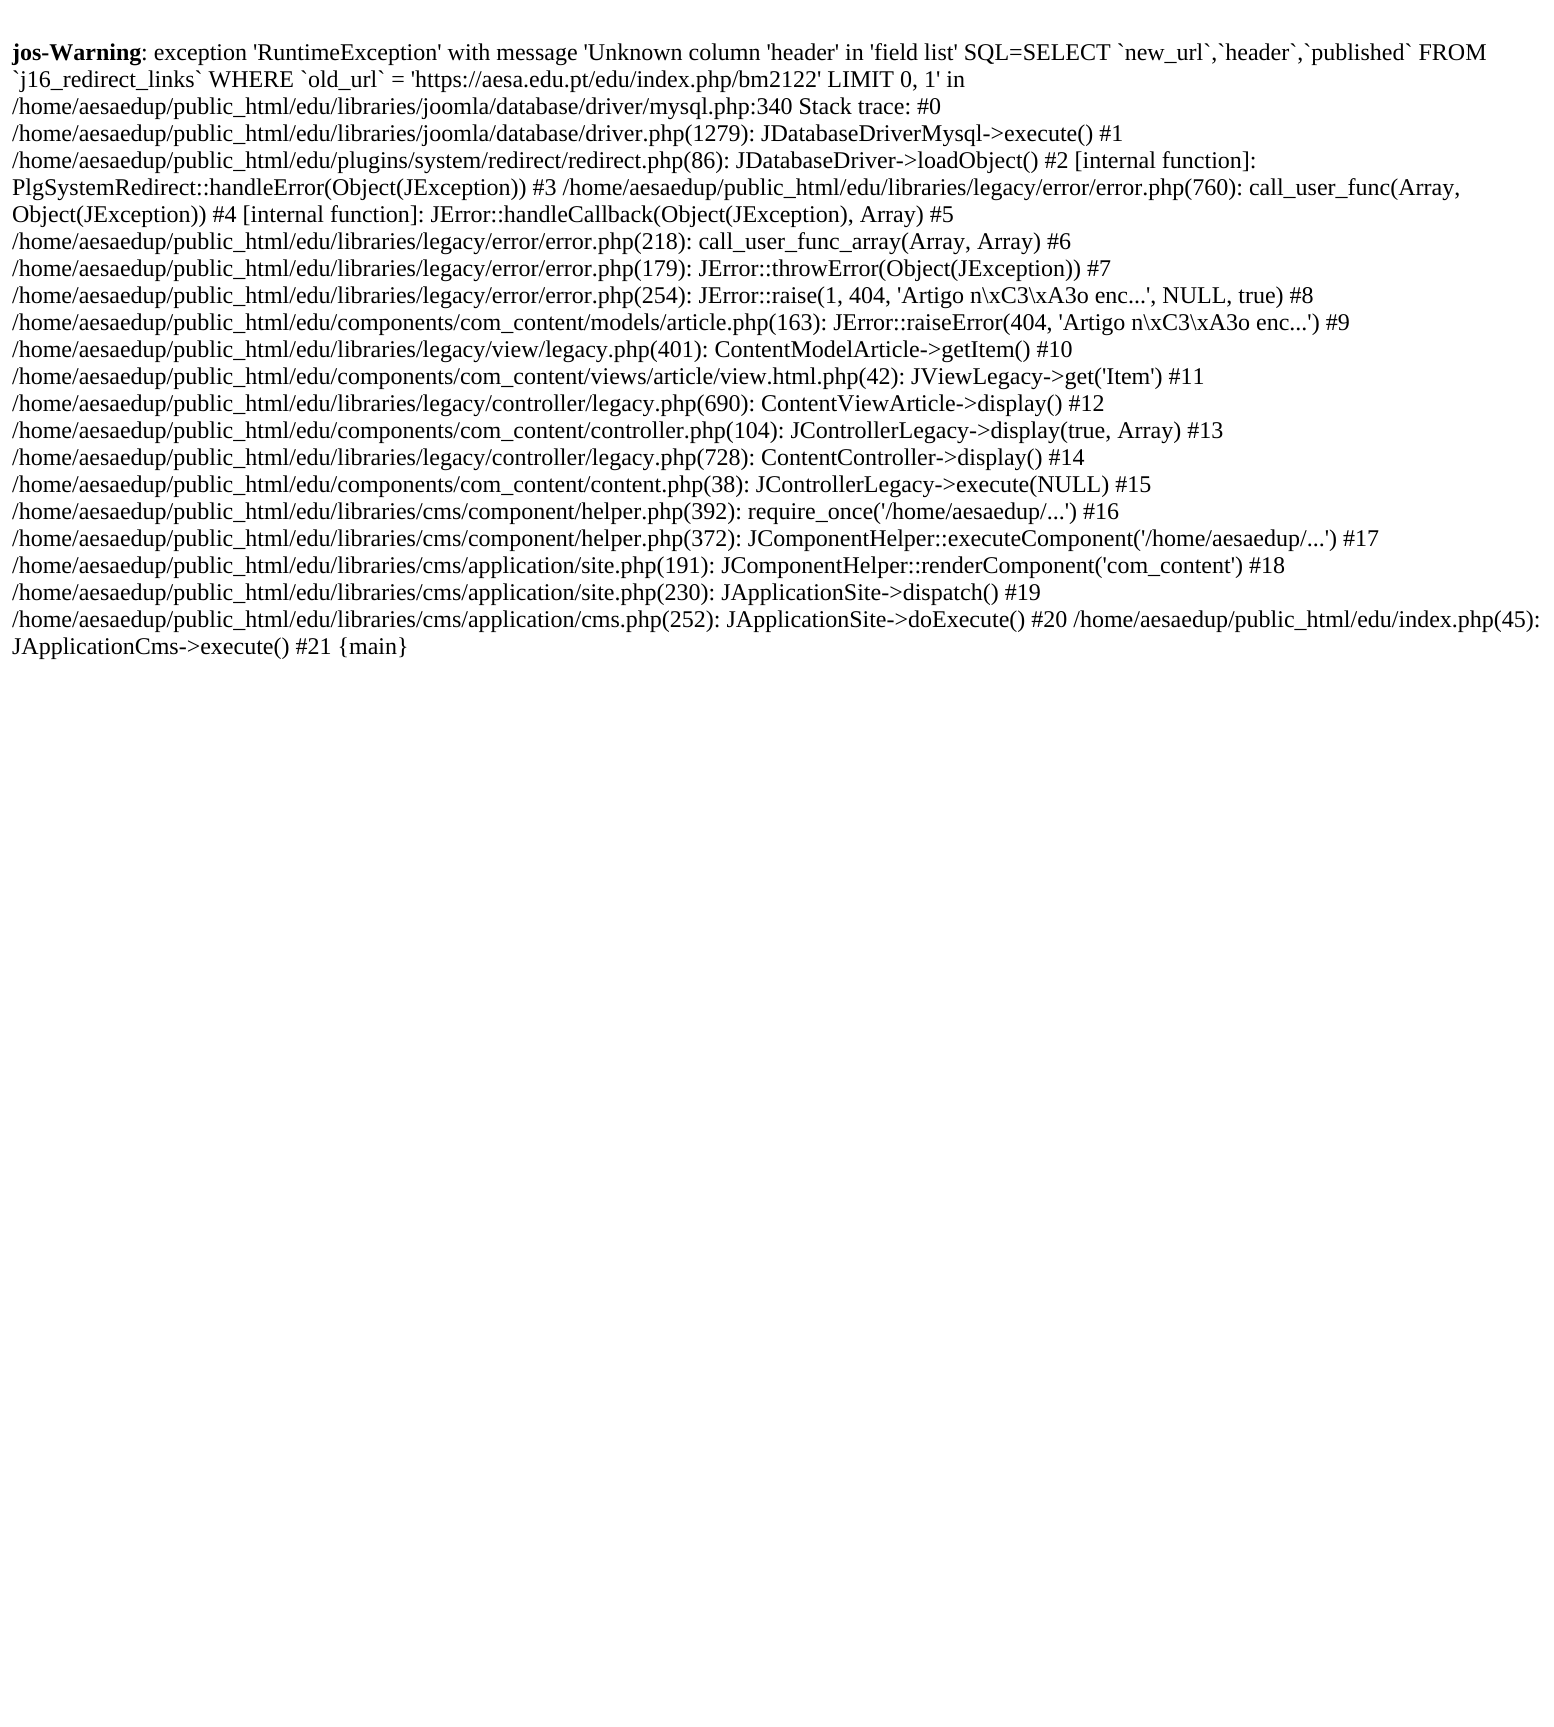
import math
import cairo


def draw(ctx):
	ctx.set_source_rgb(1, 1, 1)
	ctx.paint()
	ctx.select_font_face('Liberation Serif', cairo.FONT_SLANT_NORMAL, cairo.FONT_WEIGHT_BOLD)
	ctx.set_font_size(24)
	ctx.set_source_rgb(0, 0, 0)
	ctx.move_to(12, 60)
	ctx.show_text('jos-Warning')
	ctx.select_font_face('Liberation Serif')
	for x, y, s in [
		(141, 60, ': exception \'RuntimeException\' with message \'Unknown column \'header\' in \'field list\' SQL=SELECT `new_url`,`header`,`published` FROM'),
		(12, 87, '`j16_redirect_links` WHERE `old_url` = \'https://aesa.edu.pt/edu/index.php/bm2122\' LIMIT 0, 1\' in'),
		(12, 114, '/home/aesaedup/public_html/edu/libraries/joomla/database/driver/mysql.php:340 Stack trace: #0'),
		(12, 141, '/home/aesaedup/public_html/edu/libraries/joomla/database/driver.php(1279): JDatabaseDriverMysql->execute() #1'),
		(12, 168, '/home/aesaedup/public_html/edu/plugins/system/redirect/redirect.php(86): JDatabaseDriver->loadObject() #2 [internal function]:'),
		(12, 195, 'PlgSystemRedirect::handleError(Object(JException)) #3 /home/aesaedup/public_html/edu/libraries/legacy/error/error.php(760): call_user_func(Array,'),
		(12, 222, 'Object(JException)) #4 [internal function]: JError::handleCallback(Object(JException), Array) #5'),
		(12, 249, '/home/aesaedup/public_html/edu/libraries/legacy/error/error.php(218): call_user_func_array(Array, Array) #6'),
		(12, 276, '/home/aesaedup/public_html/edu/libraries/legacy/error/error.php(179): JError::throwError(Object(JException)) #7'),
		(12, 303, '/home/aesaedup/public_html/edu/libraries/legacy/error/error.php(254): JError::raise(1, 404, \'Artigo n\\xC3\\xA3o enc...\', NULL, true) #8'),
		(12, 330, '/home/aesaedup/public_html/edu/components/com_content/models/article.php(163): JError::raiseError(404, \'Artigo n\\xC3\\xA3o enc...\') #9'),
		(12, 357, '/home/aesaedup/public_html/edu/libraries/legacy/view/legacy.php(401): ContentModelArticle->getItem() #10'),
		(12, 384, '/home/aesaedup/public_html/edu/components/com_content/views/article/view.html.php(42): JViewLegacy->get(\'Item\') #11'),
		(12, 411, '/home/aesaedup/public_html/edu/libraries/legacy/controller/legacy.php(690): ContentViewArticle->display() #12'),
		(12, 438, '/home/aesaedup/public_html/edu/components/com_content/controller.php(104): JControllerLegacy->display(true, Array) #13'),
		(12, 465, '/home/aesaedup/public_html/edu/libraries/legacy/controller/legacy.php(728): ContentController->display() #14'),
		(12, 492, '/home/aesaedup/public_html/edu/components/com_content/content.php(38): JControllerLegacy->execute(NULL) #15'),
		(12, 519, '/home/aesaedup/public_html/edu/libraries/cms/component/helper.php(392): require_once(\'/home/aesaedup/...\') #16'),
		(12, 546, '/home/aesaedup/public_html/edu/libraries/cms/component/helper.php(372): JComponentHelper::executeComponent(\'/home/aesaedup/...\') #17'),
		(12, 573, '/home/aesaedup/public_html/edu/libraries/cms/application/site.php(191): JComponentHelper::renderComponent(\'com_content\') #18'),
		(12, 600, '/home/aesaedup/public_html/edu/libraries/cms/application/site.php(230): JApplicationSite->dispatch() #19'),
		(12, 627, '/home/aesaedup/public_html/edu/libraries/cms/application/cms.php(252): JApplicationSite->doExecute() #20 /home/aesaedup/public_html/edu/index.php(45):'),
		(12, 654, 'JApplicationCms->execute() #21 {main}'),
	]:
		ctx.move_to(x, y)
		ctx.show_text(s)


surface = cairo.ImageSurface(cairo.FORMAT_RGB24, 1554, 1727)
ctx = cairo.Context(surface)
options = cairo.FontOptions()
options.set_hint_metrics(cairo.HINT_METRICS_OFF)
options.set_hint_style(cairo.HINT_STYLE_NONE)
ctx.set_font_options(options)
ctx.set_miter_limit(4)
draw(ctx)
surface.write_to_png('image.png')
